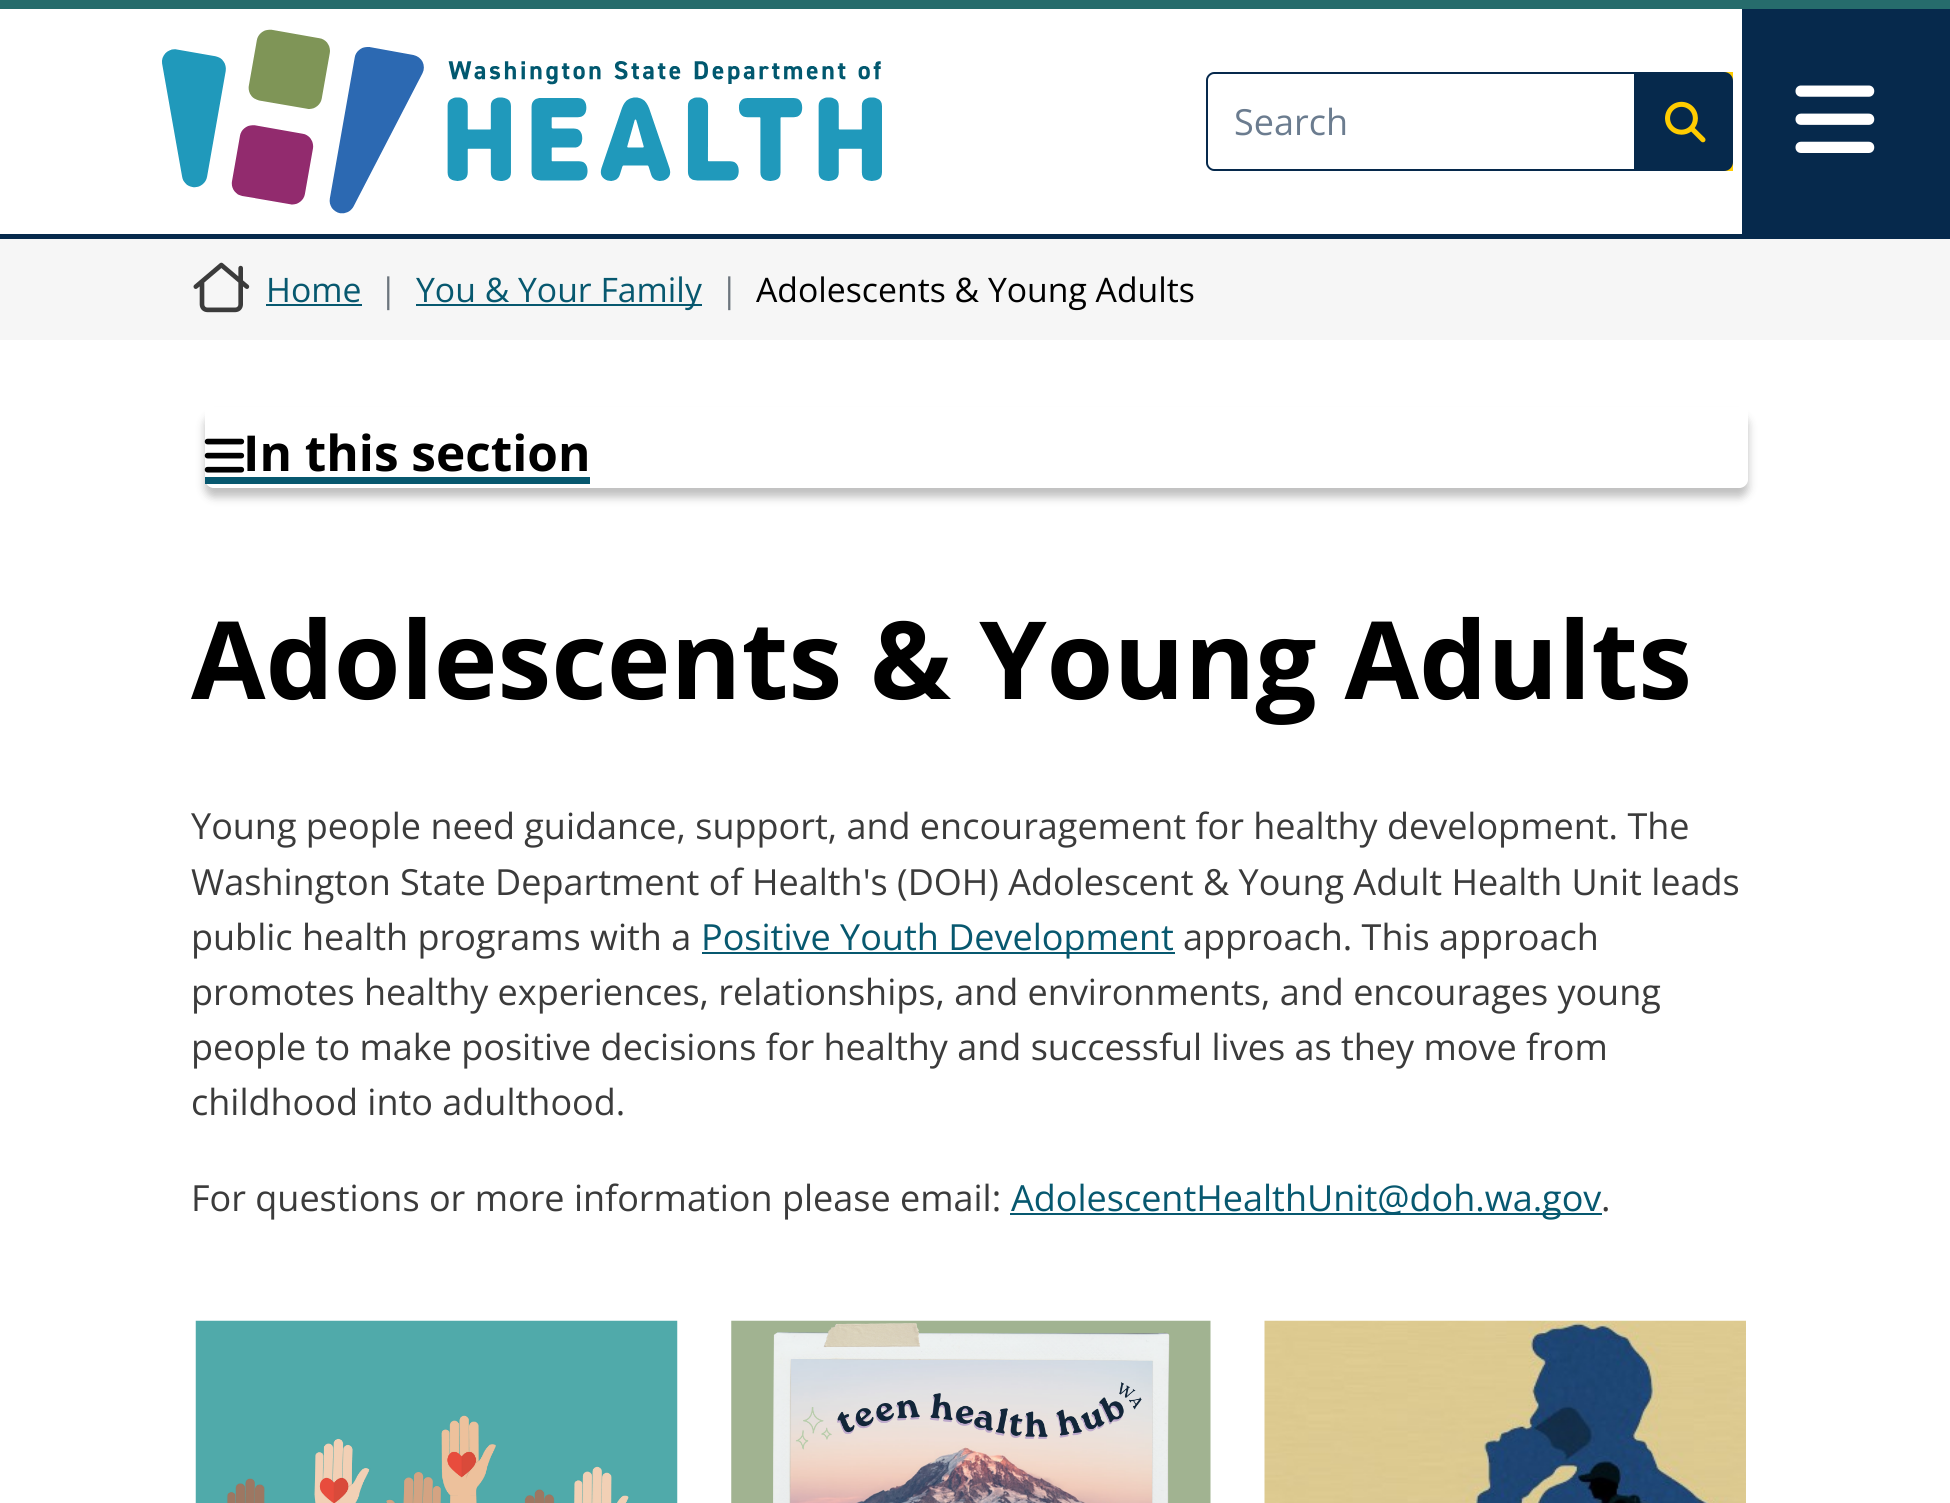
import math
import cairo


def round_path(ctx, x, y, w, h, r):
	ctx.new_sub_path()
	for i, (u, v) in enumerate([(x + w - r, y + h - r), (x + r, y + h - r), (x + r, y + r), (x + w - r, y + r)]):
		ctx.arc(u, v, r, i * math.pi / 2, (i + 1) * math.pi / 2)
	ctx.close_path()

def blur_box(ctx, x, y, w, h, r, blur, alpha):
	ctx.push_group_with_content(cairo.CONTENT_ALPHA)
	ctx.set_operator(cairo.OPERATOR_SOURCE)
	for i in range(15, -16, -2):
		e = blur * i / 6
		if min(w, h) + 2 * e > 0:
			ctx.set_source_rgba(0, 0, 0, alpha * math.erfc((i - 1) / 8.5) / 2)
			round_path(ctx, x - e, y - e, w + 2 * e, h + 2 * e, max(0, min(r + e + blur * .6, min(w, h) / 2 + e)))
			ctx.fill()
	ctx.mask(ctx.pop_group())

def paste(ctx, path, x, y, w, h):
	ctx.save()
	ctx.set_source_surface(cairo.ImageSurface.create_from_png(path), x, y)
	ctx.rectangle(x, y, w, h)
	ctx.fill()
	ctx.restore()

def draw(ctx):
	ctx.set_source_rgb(1, 1, 1)
	ctx.paint()
	ctx.set_source_rgb(0.149, 0.424, 0.424)
	ctx.rectangle(0, 0, 1950, 9)
	ctx.fill()
	paste(ctx, 'media/1.png', 162, 29, 720, 185)
	ctx.set_source_rgb(0.027, 0.161, 0.298)
	ctx.set_fill_rule(cairo.FILL_RULE_EVEN_ODD)
	ctx.new_path()
	ctx.move_to(1214, 72)
	ctx.line_to(1634, 72)
	ctx.line_to(1634, 171)
	ctx.line_to(1214, 171)
	ctx.curve_to(1210, 171, 1206, 167, 1206, 163)
	ctx.line_to(1206, 80)
	ctx.curve_to(1206, 76, 1210, 72, 1214, 72)
	ctx.close_path()
	ctx.move_to(1214, 74)
	ctx.line_to(1634, 74)
	ctx.line_to(1634, 169)
	ctx.line_to(1214, 169)
	ctx.curve_to(1211, 169, 1208, 166, 1208, 163)
	ctx.line_to(1208, 80)
	ctx.curve_to(1208, 77, 1211, 74, 1214, 74)
	ctx.close_path()
	ctx.fill()
	ctx.select_font_face('Open Sans')
	ctx.set_font_size(36)
	ctx.set_source_rgb(0.42, 0.486, 0.561)
	ctx.move_to(1234, 135)
	ctx.show_text('Search')
	ctx.set_source_rgb(1, 0.8, 0)
	ctx.rectangle(1724, 72, 9, 99)
	ctx.fill()
	ctx.set_source_rgb(0.027, 0.161, 0.298)
	ctx.new_path()
	ctx.move_to(1635, 73)
	ctx.line_to(1724, 73)
	ctx.curve_to(1728.5, 73, 1732, 76.5, 1732, 81)
	ctx.line_to(1732, 162)
	ctx.curve_to(1732, 166.5, 1728.5, 170, 1724, 170)
	ctx.line_to(1635, 170)
	ctx.close_path()
	ctx.fill_preserve()
	ctx.stroke()
	paste(ctx, 'media/2.png', 1665, 101, 41, 42)
	ctx.rectangle(1742, 9, 208, 225)
	ctx.fill()
	paste(ctx, 'media/3.png', 1795, 85, 80, 68)
	ctx.rectangle(0, 234, 1950, 5)
	ctx.fill()
	ctx.set_source_rgb(0.961, 0.961, 0.961)
	ctx.rectangle(0, 239, 1950, 101)
	ctx.fill()
	paste(ctx, 'media/4.png', 193, 262, 57, 51)
	ctx.set_font_size(33.75)
	ctx.set_source_rgb(0.031, 0.345, 0.435)
	ctx.move_to(266, 302)
	ctx.show_text('Home')
	ctx.rectangle(266, 304, 96, 2)
	ctx.fill()
	ctx.set_source_rgb(0.424, 0.459, 0.49)
	ctx.move_to(379, 302)
	ctx.show_text('|')
	ctx.set_source_rgb(0.031, 0.345, 0.435)
	ctx.rectangle(416, 304, 286, 2)
	ctx.fill()
	ctx.move_to(416, 302)
	ctx.show_text('You & Your Family')
	ctx.set_source_rgb(0.424, 0.459, 0.49)
	ctx.move_to(720, 302)
	ctx.show_text('|')
	ctx.set_source_rgb(0, 0, 0)
	ctx.move_to(756, 302)
	ctx.show_text('Adolescents & Young Adults')
	ctx.save()
	ctx.new_path()
	ctx.move_to(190, 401)
	ctx.line_to(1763, 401)
	ctx.line_to(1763, 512)
	ctx.line_to(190, 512)
	ctx.close_path()
	ctx.move_to(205, 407)
	ctx.line_to(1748, 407)
	ctx.line_to(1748, 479)
	ctx.curve_to(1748, 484, 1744, 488, 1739, 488)
	ctx.line_to(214, 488)
	ctx.curve_to(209, 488, 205, 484, 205, 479)
	ctx.close_path()
	ctx.clip()
	ctx.set_source_rgb(0, 0, 0)
	blur_box(ctx, 205, 416, 1543, 81, 9, 4.5, 0.25)
	ctx.restore()
	paste(ctx, 'media/5.png', 204, 438, 41, 35)
	ctx.select_font_face('Open Sans', cairo.FONT_SLANT_NORMAL, cairo.FONT_WEIGHT_BOLD)
	ctx.set_font_size(49.5)
	ctx.move_to(243, 471)
	ctx.show_text('In this section')
	ctx.set_source_rgb(0.031, 0.345, 0.435)
	ctx.rectangle(205, 477, 385, 7)
	ctx.fill()
	ctx.set_font_size(108)
	ctx.set_source_rgb(0, 0, 0)
	ctx.move_to(191, 699)
	ctx.show_text('Adolescents & Young Adults')
	ctx.select_font_face('Open Sans')
	ctx.set_font_size(36)
	ctx.set_source_rgb(0.231, 0.231, 0.231)
	for x, y, s in [
		(191, 839, 'Young people need guidance, support, and encouragement for healthy development. The'),
		(191, 895, 'Washington State Department of Health\'s (DOH) Adolescent & Young Adult Health Unit leads'),
		(191, 950, 'public health programs with a'),
	]:
		ctx.move_to(x, y)
		ctx.show_text(s)
	ctx.set_source_rgb(0.031, 0.345, 0.435)
	ctx.rectangle(702, 952, 473, 2)
	ctx.fill()
	ctx.move_to(701, 950)
	ctx.show_text('Positive Youth Development')
	ctx.set_source_rgb(0.231, 0.231, 0.231)
	for x, y, s in [
		(1183, 950, 'approach. This approach'),
		(191, 1005, 'promotes healthy experiences, relationships, and environments, and encourages young'),
		(191, 1060, 'people to make positive decisions for healthy and successful lives as they move from'),
		(191, 1115, 'childhood into adulthood.'),
		(191, 1211, 'For questions or more information please email:'),
	]:
		ctx.move_to(x, y)
		ctx.show_text(s)
	ctx.set_source_rgb(0.031, 0.345, 0.435)
	ctx.rectangle(1010, 1213, 592, 2)
	ctx.fill()
	ctx.move_to(1011, 1211)
	ctx.show_text('AdolescentHealthUnit@doh.wa.gov')
	ctx.set_source_rgb(0.231, 0.231, 0.231)
	ctx.move_to(1601, 1211)
	ctx.show_text('.')
	paste(ctx, 'media/6.png', 195, 1320, 483, 183)
	paste(ctx, 'media/7.png', 731, 1320, 480, 183)
	paste(ctx, 'media/8.png', 1264, 1320, 482, 183)


surface = cairo.ImageSurface(cairo.FORMAT_RGB24, 1950, 1503)
ctx = cairo.Context(surface)
options = cairo.FontOptions()
options.set_hint_metrics(cairo.HINT_METRICS_OFF)
options.set_hint_style(cairo.HINT_STYLE_NONE)
ctx.set_font_options(options)
ctx.set_miter_limit(4)
draw(ctx)
surface.write_to_png('image.png')
